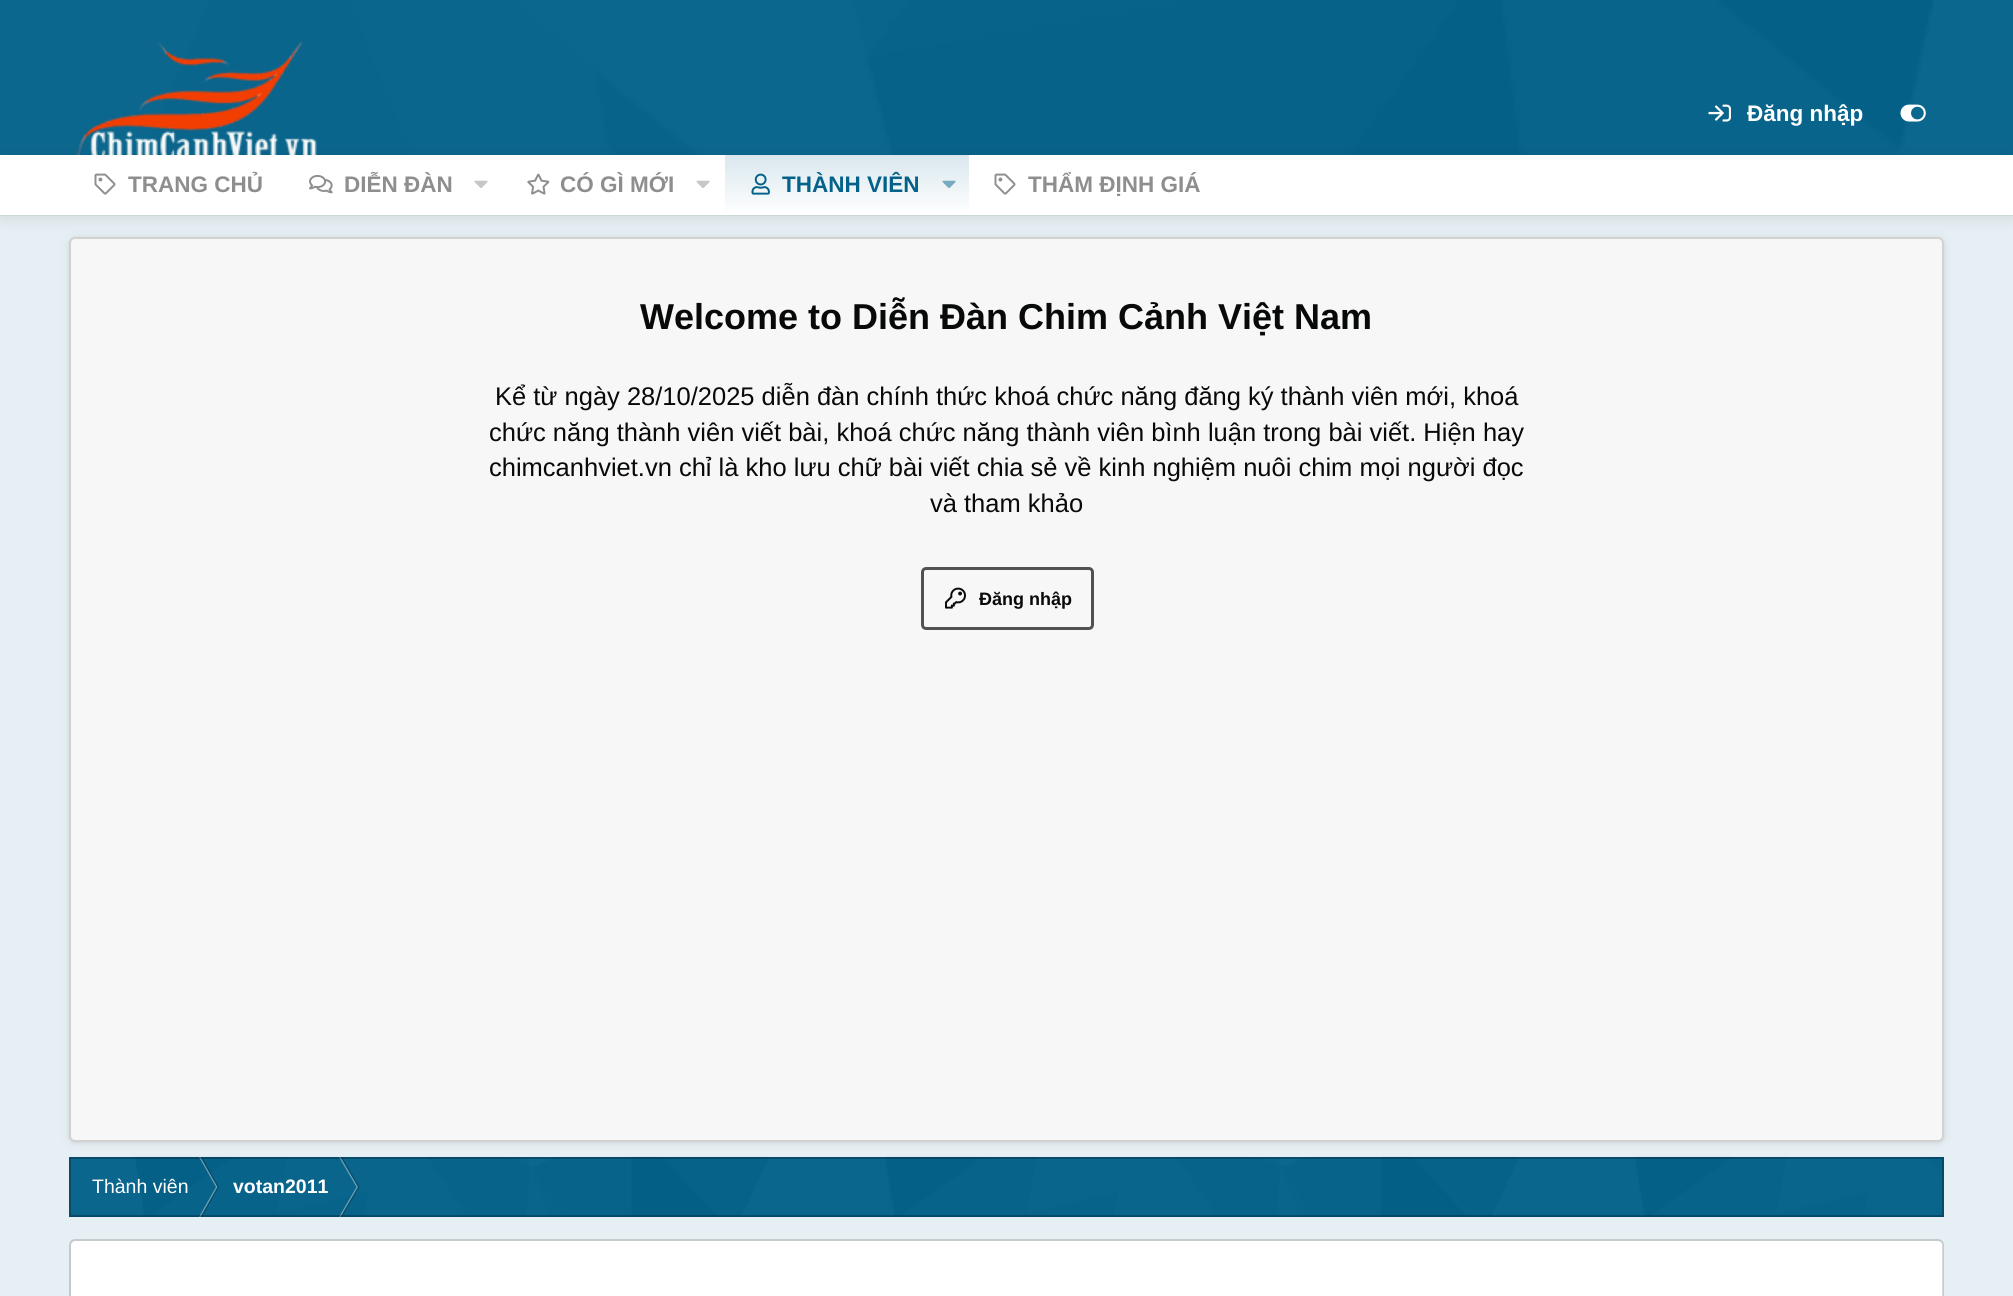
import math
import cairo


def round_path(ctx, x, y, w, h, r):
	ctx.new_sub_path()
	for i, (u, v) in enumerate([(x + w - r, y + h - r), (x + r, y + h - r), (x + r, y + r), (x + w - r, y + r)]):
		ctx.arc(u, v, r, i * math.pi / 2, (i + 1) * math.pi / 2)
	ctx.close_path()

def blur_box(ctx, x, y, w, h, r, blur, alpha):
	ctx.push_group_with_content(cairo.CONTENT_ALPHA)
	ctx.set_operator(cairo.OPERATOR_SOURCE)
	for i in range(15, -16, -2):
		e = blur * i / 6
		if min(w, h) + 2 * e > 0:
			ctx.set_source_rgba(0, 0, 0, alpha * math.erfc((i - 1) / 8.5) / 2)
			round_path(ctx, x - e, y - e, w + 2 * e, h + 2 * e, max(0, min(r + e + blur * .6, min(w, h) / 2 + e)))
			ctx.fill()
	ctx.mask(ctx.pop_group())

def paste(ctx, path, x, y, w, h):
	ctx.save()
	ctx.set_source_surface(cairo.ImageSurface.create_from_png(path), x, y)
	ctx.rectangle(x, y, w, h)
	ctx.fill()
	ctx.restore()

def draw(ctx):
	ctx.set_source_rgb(0.016, 0.384, 0.541)
	ctx.paint()
	paste(ctx, 'media/1.png', 0, 0, 2013, 155)
	paste(ctx, 'media/2.png', 76, 41, 241, 114)
	paste(ctx, 'media/3.png', 1708, 104, 23, 18)
	ctx.select_font_face('Liberation Sans', cairo.FONT_SLANT_NORMAL, cairo.FONT_WEIGHT_BOLD)
	ctx.set_font_size(22.5)
	ctx.set_source_rgb(1, 1, 1)
	ctx.move_to(1747, 121)
	ctx.show_text('Đăng nhập')
	paste(ctx, 'media/4.png', 1900, 104, 26, 18)
	ctx.set_source_rgb(0.902, 0.937, 0.953)
	ctx.rectangle(0, 215, 2013, 1081)
	ctx.fill()
	ctx.set_source_rgba(0, 0, 0, 0.05)
	ctx.rectangle(0, 215, 2013, 1)
	ctx.fill()
	ctx.set_source_rgb(0, 0, 0)
	blur_box(ctx, 69, 239, 1875, 904, 6, 2, 0.08)
	blur_box(ctx, 69, 237, 1875, 905, 6, 6, 0.06)
	ctx.set_source_rgb(0.965, 0.965, 0.965)
	round_path(ctx, 69, 237, 1875, 905, 6)
	ctx.fill()
	round_path(ctx, 70, 238, 1873, 903, 5)
	ctx.set_source_rgba(0, 0, 0, 0.15)
	ctx.stroke()
	ctx.set_source_rgb(0, 0, 0)
	blur_box(ctx, 0, 158, 2013, 60, 0, 7.5, 0.1)
	ctx.set_source_rgb(1, 1, 1)
	ctx.rectangle(0, 155, 2013, 60)
	ctx.fill()
	paste(ctx, 'media/5.png', 94, 173, 22, 22)
	ctx.set_source_rgb(0.557, 0.557, 0.557)
	ctx.move_to(128, 192)
	ctx.show_text('TRANG CHỦ')
	paste(ctx, 'media/6.png', 309, 174, 24, 20)
	ctx.move_to(344, 192)
	ctx.show_text('DIỄN ĐÀN')
	paste(ctx, 'media/7.png', 474, 180, 14, 8)
	paste(ctx, 'media/8.png', 527, 173, 23, 22)
	ctx.move_to(560, 192)
	ctx.show_text('CÓ GÌ MỚI')
	paste(ctx, 'media/7.png', 696, 180, 14, 8)
	gradient = cairo.LinearGradient(847, 154, 847, 215)
	gradient.add_color_stop_rgba(0, 0.851, 0.906, 0.929, 1)
	gradient.add_color_stop_rgba(1, 1, 1, 1, 1)
	ctx.set_source(gradient)
	ctx.rectangle(725, 155, 244, 56)
	ctx.fill()
	paste(ctx, 'media/9.png', 751, 173, 19, 22)
	ctx.set_source_rgb(0.016, 0.384, 0.541)
	ctx.move_to(782, 192)
	ctx.show_text('THÀNH VIÊN')
	paste(ctx, 'media/10.png', 942, 180, 14, 9)
	paste(ctx, 'media/5.png', 994, 173, 22, 22)
	ctx.set_source_rgb(0.557, 0.557, 0.557)
	ctx.move_to(1028, 192)
	ctx.show_text('THẨM ĐỊNH GIÁ')
	ctx.set_font_size(36)
	ctx.set_source_rgb(0.035, 0.039, 0.039)
	ctx.move_to(640, 329)
	ctx.show_text('Welcome to Diễn Đàn Chim Cảnh Việt Nam')
	ctx.select_font_face('Liberation Sans')
	ctx.set_font_size(25.5)
	for x, y, s in [
		(495, 405, 'Kể từ ngày 28/10/2025 diễn đàn chính thức khoá chức năng đăng ký thành viên mới, khoá'),
		(489, 441, 'chức năng thành viên viết bài, khoá chức năng thành viên bình luận trong bài viết. Hiện hay'),
		(489, 476, 'chimcanhviet.vn chỉ là kho lưu chữ bài viết chia sẻ về kinh nghiệm nuôi chim mọi người đọc'),
		(930, 512, 'và tham khảo'),
	]:
		ctx.move_to(x, y)
		ctx.show_text(s)
	round_path(ctx, 922.5, 568.5, 170, 60, 3.5)
	ctx.set_source_rgb(0.314, 0.318, 0.318)
	ctx.set_line_width(3)
	ctx.stroke()
	paste(ctx, 'media/11.png', 945, 587, 21, 22)
	ctx.select_font_face('Liberation Sans', cairo.FONT_SLANT_NORMAL, cairo.FONT_WEIGHT_BOLD)
	ctx.set_font_size(18)
	ctx.set_source_rgb(0.035, 0.039, 0.039)
	ctx.move_to(979, 605)
	ctx.show_text('Đăng nhập')
	ctx.set_source_rgb(0.016, 0.384, 0.541)
	ctx.rectangle(69, 1157, 1875, 60)
	ctx.fill()
	paste(ctx, 'media/12.png', 69, 1156, 1875, 60)
	ctx.set_source_rgba(1, 1, 1, 0.4)
	ctx.new_path()
	ctx.move_to(199, 1157)
	ctx.line_to(200.5, 1157)
	ctx.line_to(217.5, 1187)
	ctx.line_to(216, 1187)
	ctx.close_path()
	ctx.fill()
	ctx.set_source_rgba(0, 0, 0, 0.25)
	ctx.new_path()
	ctx.move_to(200.5, 1157)
	ctx.line_to(202, 1157)
	ctx.line_to(219, 1187)
	ctx.line_to(217.5, 1187)
	ctx.close_path()
	ctx.fill()
	ctx.set_source_rgba(1, 1, 1, 0.4)
	ctx.new_path()
	ctx.move_to(216, 1187)
	ctx.line_to(217.5, 1187)
	ctx.line_to(200.5, 1217)
	ctx.line_to(199, 1217)
	ctx.close_path()
	ctx.fill()
	ctx.set_source_rgba(0, 0, 0, 0.25)
	ctx.new_path()
	ctx.move_to(217.5, 1187)
	ctx.line_to(219, 1187)
	ctx.line_to(202, 1217)
	ctx.line_to(200.5, 1217)
	ctx.close_path()
	ctx.fill()
	ctx.set_source_rgb(0.424, 0.639, 0.729)
	ctx.new_path()
	ctx.move_to(339, 1157)
	ctx.line_to(340.5, 1157)
	ctx.line_to(358, 1187)
	ctx.line_to(356.5, 1187)
	ctx.close_path()
	ctx.fill()
	ctx.set_source_rgba(0, 0, 0, 0.25)
	ctx.new_path()
	ctx.move_to(340.5, 1157)
	ctx.line_to(342, 1157)
	ctx.line_to(359.5, 1187)
	ctx.line_to(358, 1187)
	ctx.close_path()
	ctx.fill()
	ctx.set_source_rgba(1, 1, 1, 0.4)
	ctx.new_path()
	ctx.move_to(356.5, 1187)
	ctx.line_to(358, 1187)
	ctx.line_to(340.5, 1217)
	ctx.line_to(339, 1217)
	ctx.close_path()
	ctx.fill()
	ctx.set_source_rgba(0, 0, 0, 0.25)
	ctx.new_path()
	ctx.move_to(358, 1187)
	ctx.line_to(359.5, 1187)
	ctx.line_to(342, 1217)
	ctx.line_to(340.5, 1217)
	ctx.close_path()
	ctx.fill()
	ctx.rectangle(70, 1158, 1873, 58)
	ctx.set_source_rgba(0.008, 0.012, 0.012, 0.25)
	ctx.set_line_width(2)
	ctx.stroke()
	ctx.select_font_face('Liberation Sans')
	ctx.set_font_size(19.5)
	ctx.set_source_rgb(1, 1, 1)
	ctx.move_to(92, 1193)
	ctx.show_text('Thành viên')
	ctx.select_font_face('Liberation Sans', cairo.FONT_SLANT_NORMAL, cairo.FONT_WEIGHT_BOLD)
	ctx.move_to(233, 1193)
	ctx.show_text('votan2011')
	round_path(ctx, 71, 1241, 1872, 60, 5)
	ctx.fill()
	round_path(ctx, 70, 1240, 1873, 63, 5)
	ctx.set_source_rgba(0, 0, 0, 0.15)
	ctx.stroke()


surface = cairo.ImageSurface(cairo.FORMAT_RGB24, 2013, 1296)
ctx = cairo.Context(surface)
options = cairo.FontOptions()
options.set_hint_metrics(cairo.HINT_METRICS_OFF)
options.set_hint_style(cairo.HINT_STYLE_NONE)
ctx.set_font_options(options)
ctx.set_miter_limit(4)
draw(ctx)
surface.write_to_png('image.png')
